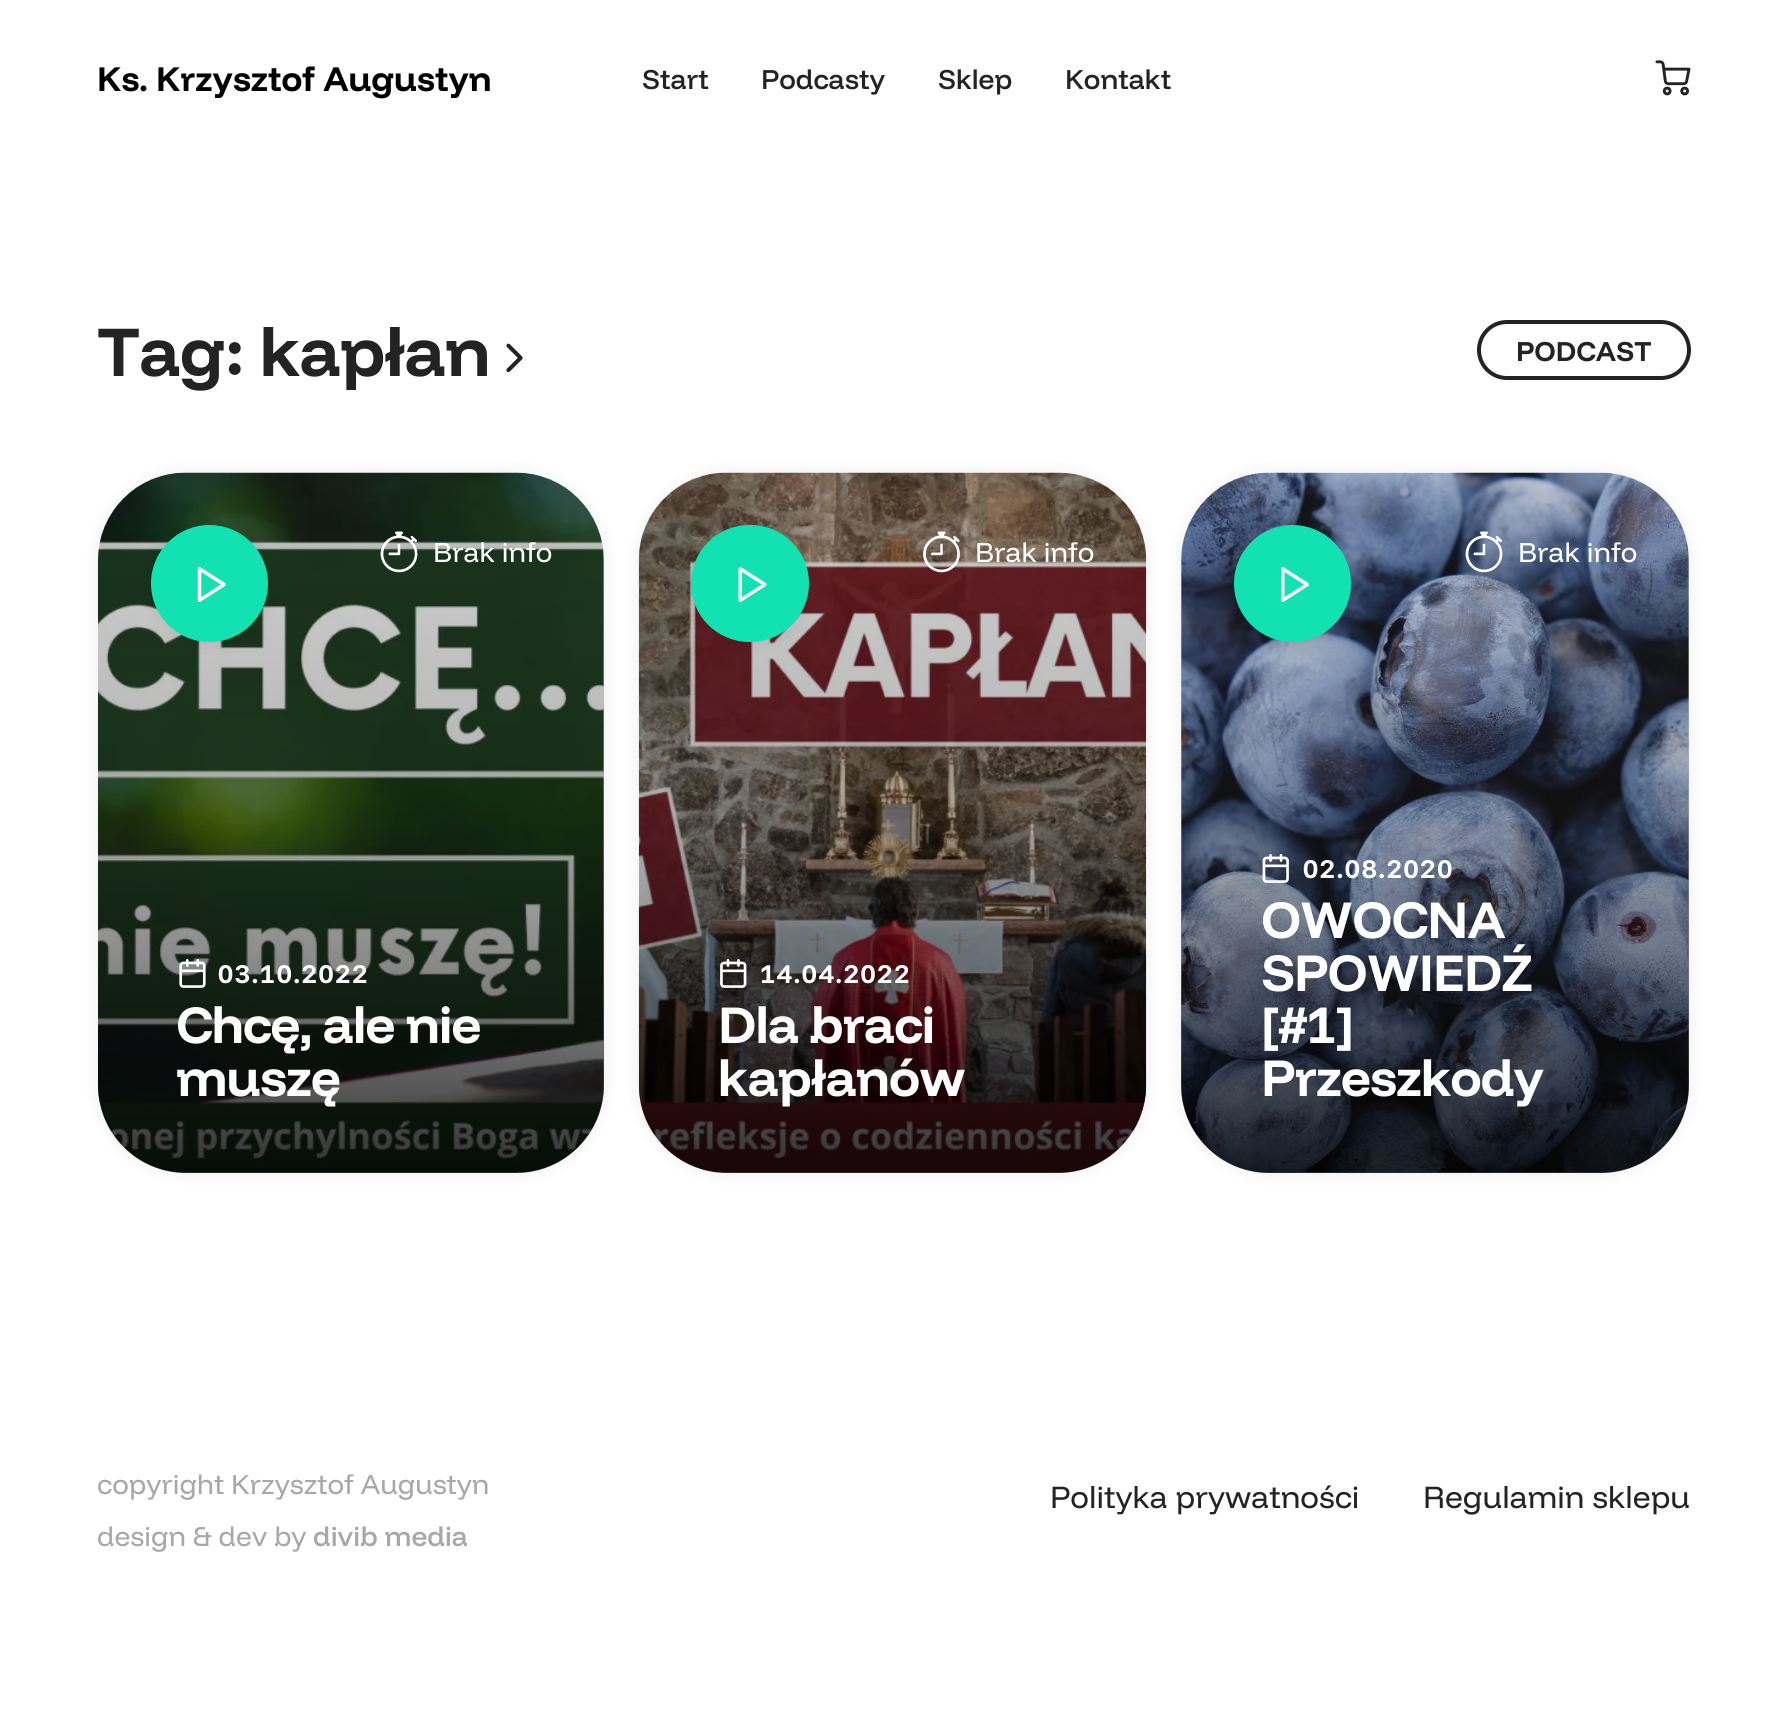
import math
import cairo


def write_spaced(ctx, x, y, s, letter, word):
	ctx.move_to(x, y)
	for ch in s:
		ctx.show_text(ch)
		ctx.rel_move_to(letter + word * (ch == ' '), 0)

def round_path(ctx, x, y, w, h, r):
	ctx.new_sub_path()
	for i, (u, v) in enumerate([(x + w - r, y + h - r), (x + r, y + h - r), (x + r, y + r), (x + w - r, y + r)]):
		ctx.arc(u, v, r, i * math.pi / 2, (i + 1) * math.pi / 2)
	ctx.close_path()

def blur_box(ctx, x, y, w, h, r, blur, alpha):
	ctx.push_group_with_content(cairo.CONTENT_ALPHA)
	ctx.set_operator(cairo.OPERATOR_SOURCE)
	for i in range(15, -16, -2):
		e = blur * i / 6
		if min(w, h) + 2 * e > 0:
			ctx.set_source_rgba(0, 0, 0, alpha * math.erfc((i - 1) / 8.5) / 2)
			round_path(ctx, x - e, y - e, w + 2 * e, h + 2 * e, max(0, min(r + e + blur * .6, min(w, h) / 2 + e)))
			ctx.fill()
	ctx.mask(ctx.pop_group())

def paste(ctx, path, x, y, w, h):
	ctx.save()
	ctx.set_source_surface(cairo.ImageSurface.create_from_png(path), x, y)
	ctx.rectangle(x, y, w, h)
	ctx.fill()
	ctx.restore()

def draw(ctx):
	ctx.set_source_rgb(1, 1, 1)
	ctx.paint()
	ctx.select_font_face('Funnel Display', cairo.FONT_SLANT_NORMAL, cairo.FONT_WEIGHT_BOLD)
	ctx.set_font_size(35)
	ctx.set_source_rgb(0, 0, 0)
	ctx.move_to(97, 91)
	ctx.show_text('Ks. Krzysztof Augustyn')
	ctx.select_font_face('Funnel Display Medium')
	ctx.set_font_size(28)
	ctx.set_source_rgb(0.137, 0.137, 0.137)
	for x, y, s in [
		(642, 89, 'Start'),
		(761, 89, 'Podcasty'),
		(938, 89, 'Sklep'),
		(1065, 89, 'Kontakt'),
	]:
		ctx.move_to(x, y)
		ctx.show_text(s)
	paste(ctx, 'media/1.png', 1655, 60, 36, 36)
	ctx.select_font_face('Funnel Display', cairo.FONT_SLANT_NORMAL, cairo.FONT_WEIGHT_BOLD)
	ctx.set_font_size(70)
	write_spaced(ctx, 97, 376, 'Tag: kapłan', -0.9, 0)
	paste(ctx, 'media/2.png', 506, 343, 17, 30)
	round_path(ctx, 1479, 322, 210, 56, 28)
	ctx.set_line_width(4)
	ctx.stroke()
	ctx.set_font_size(28)
	ctx.move_to(1516, 361)
	ctx.show_text('PODCAST')
	ctx.set_source_rgb(0, 0, 0)
	blur_box(ctx, 98, 473, 506, 700, 88, 9, 0.08)
	paste(ctx, 'media/5.png', 98, 472, 506, 701)
	gradient = cairo.LinearGradient(351, 473, 351, 1173)
	gradient.add_color_stop_rgba(0.1, 0, 0, 0, 0.2)
	gradient.add_color_stop_rgba(0.5, 0, 0, 0, 0.3)
	gradient.add_color_stop_rgba(0.75, 0, 0, 0, 0.5)
	gradient.add_color_stop_rgba(1, 0, 0, 0, 0.8)
	ctx.set_source(gradient)
	round_path(ctx, 98, 473, 506, 700, 88)
	ctx.fill()
	ctx.set_source_rgb(0, 0, 0)
	blur_box(ctx, 151, 525, 117, 117, 58.5, 9, 0.08)
	ctx.set_source_rgb(0.071, 0.886, 0.694)
	ctx.arc(209.5, 583.5, 58.5, 0, 2 * math.pi)
	ctx.fill()
	paste(ctx, 'media/3.png', 197, 567, 29, 35)
	paste(ctx, 'media/4.png', 380, 531, 38, 42)
	ctx.select_font_face('Funnel Display')
	ctx.set_source_rgb(1, 1, 1)
	ctx.move_to(433, 562)
	ctx.show_text('Brak info')
	paste(ctx, 'media/6.png', 179, 959, 27, 29)
	ctx.select_font_face('Funnel Display', cairo.FONT_SLANT_NORMAL, cairo.FONT_WEIGHT_BOLD)
	ctx.set_font_size(26.25)
	write_spaced(ctx, 218, 983, '03.10.2022', 1.75, 0)
	ctx.set_font_size(52.5)
	write_spaced(ctx, 176, 1043, 'Chcę, ale nie', -0.9, 0)
	write_spaced(ctx, 176, 1096, 'muszę', -0.9, 0)
	ctx.set_source_rgb(0, 0, 0)
	blur_box(ctx, 639, 473, 507, 700, 88, 9, 0.08)
	paste(ctx, 'media/9.png', 638, 472, 509, 701)
	gradient = cairo.LinearGradient(893, 473, 893, 1173)
	gradient.add_color_stop_rgba(0.1, 0, 0, 0, 0.2)
	gradient.add_color_stop_rgba(0.5, 0, 0, 0, 0.3)
	gradient.add_color_stop_rgba(0.75, 0, 0, 0, 0.5)
	gradient.add_color_stop_rgba(1, 0, 0, 0, 0.8)
	ctx.set_source(gradient)
	round_path(ctx, 639, 473, 507, 700, 88)
	ctx.fill()
	ctx.set_source_rgb(0, 0, 0)
	blur_box(ctx, 691, 525, 118, 117, 58.5, 9, 0.08)
	ctx.set_source_rgb(0.071, 0.886, 0.694)
	round_path(ctx, 691, 525, 118, 117, 58.5)
	ctx.fill()
	paste(ctx, 'media/7.png', 738, 567, 29, 35)
	paste(ctx, 'media/8.png', 923, 531, 37, 42)
	ctx.select_font_face('Funnel Display')
	ctx.set_font_size(28)
	ctx.set_source_rgb(1, 1, 1)
	ctx.move_to(975, 562)
	ctx.show_text('Brak info')
	paste(ctx, 'media/10.png', 720, 959, 27, 29)
	ctx.select_font_face('Funnel Display', cairo.FONT_SLANT_NORMAL, cairo.FONT_WEIGHT_BOLD)
	ctx.set_font_size(26.25)
	write_spaced(ctx, 760, 983, '14.04.2022', 1.75, 0)
	ctx.set_font_size(52.5)
	write_spaced(ctx, 718, 1043, 'Dla braci', -0.9, 0)
	write_spaced(ctx, 718, 1096, 'kapłanów', -0.9, 0)
	ctx.set_source_rgb(0, 0, 0)
	blur_box(ctx, 1181, 473, 508, 700, 88, 9, 0.08)
	paste(ctx, 'media/13.png', 1181, 472, 508, 701)
	gradient = cairo.LinearGradient(1435, 473, 1435, 1173)
	gradient.add_color_stop_rgba(0.1, 0, 0, 0, 0.2)
	gradient.add_color_stop_rgba(0.5, 0, 0, 0, 0.3)
	gradient.add_color_stop_rgba(0.75, 0, 0, 0, 0.5)
	gradient.add_color_stop_rgba(1, 0, 0, 0, 0.8)
	ctx.set_source(gradient)
	round_path(ctx, 1181, 473, 508, 700, 88)
	ctx.fill()
	ctx.set_source_rgb(0, 0, 0)
	blur_box(ctx, 1234, 525, 117, 117, 58.5, 9, 0.08)
	ctx.set_source_rgb(0.071, 0.886, 0.694)
	ctx.arc(1292.5, 583.5, 58.5, 0, 2 * math.pi)
	ctx.fill()
	paste(ctx, 'media/11.png', 1281, 567, 28, 35)
	paste(ctx, 'media/12.png', 1465, 531, 38, 42)
	ctx.select_font_face('Funnel Display')
	ctx.set_font_size(28)
	ctx.set_source_rgb(1, 1, 1)
	ctx.move_to(1518, 562)
	ctx.show_text('Brak info')
	paste(ctx, 'media/14.png', 1262, 854, 27, 29)
	ctx.select_font_face('Funnel Display', cairo.FONT_SLANT_NORMAL, cairo.FONT_WEIGHT_BOLD)
	ctx.set_font_size(26.25)
	write_spaced(ctx, 1303, 878, '02.08.2020', 1.75, 0)
	ctx.set_font_size(52.5)
	for x, y, s in [
		(1261, 938, 'OWOCNA'),
		(1261, 991, 'SPOWIEDŹ'),
		(1261, 1043, '[#1]'),
		(1261, 1096, 'Przeszkody'),
	]:
		write_spaced(ctx, x, y, s, -0.9, 0)
	ctx.select_font_face('Funnel Display')
	ctx.set_font_size(28)
	ctx.set_source_rgb(0.659, 0.659, 0.659)
	ctx.move_to(97, 1494)
	ctx.show_text('copyright Krzysztof Augustyn')
	ctx.move_to(97, 1546)
	ctx.show_text('design & dev by')
	ctx.select_font_face('Funnel Display Medium')
	ctx.move_to(313, 1546)
	ctx.show_text('divib media')
	ctx.select_font_face('Funnel Display')
	ctx.set_font_size(31.5)
	ctx.set_source_rgb(0.137, 0.137, 0.137)
	ctx.move_to(1050, 1508)
	ctx.show_text('Polityka prywatności')
	ctx.move_to(1423, 1508)
	ctx.show_text('Regulamin sklepu')


surface = cairo.ImageSurface(cairo.FORMAT_RGB24, 1786, 1714)
ctx = cairo.Context(surface)
options = cairo.FontOptions()
options.set_hint_metrics(cairo.HINT_METRICS_OFF)
options.set_hint_style(cairo.HINT_STYLE_NONE)
ctx.set_font_options(options)
ctx.set_miter_limit(4)
draw(ctx)
surface.write_to_png('image.png')
